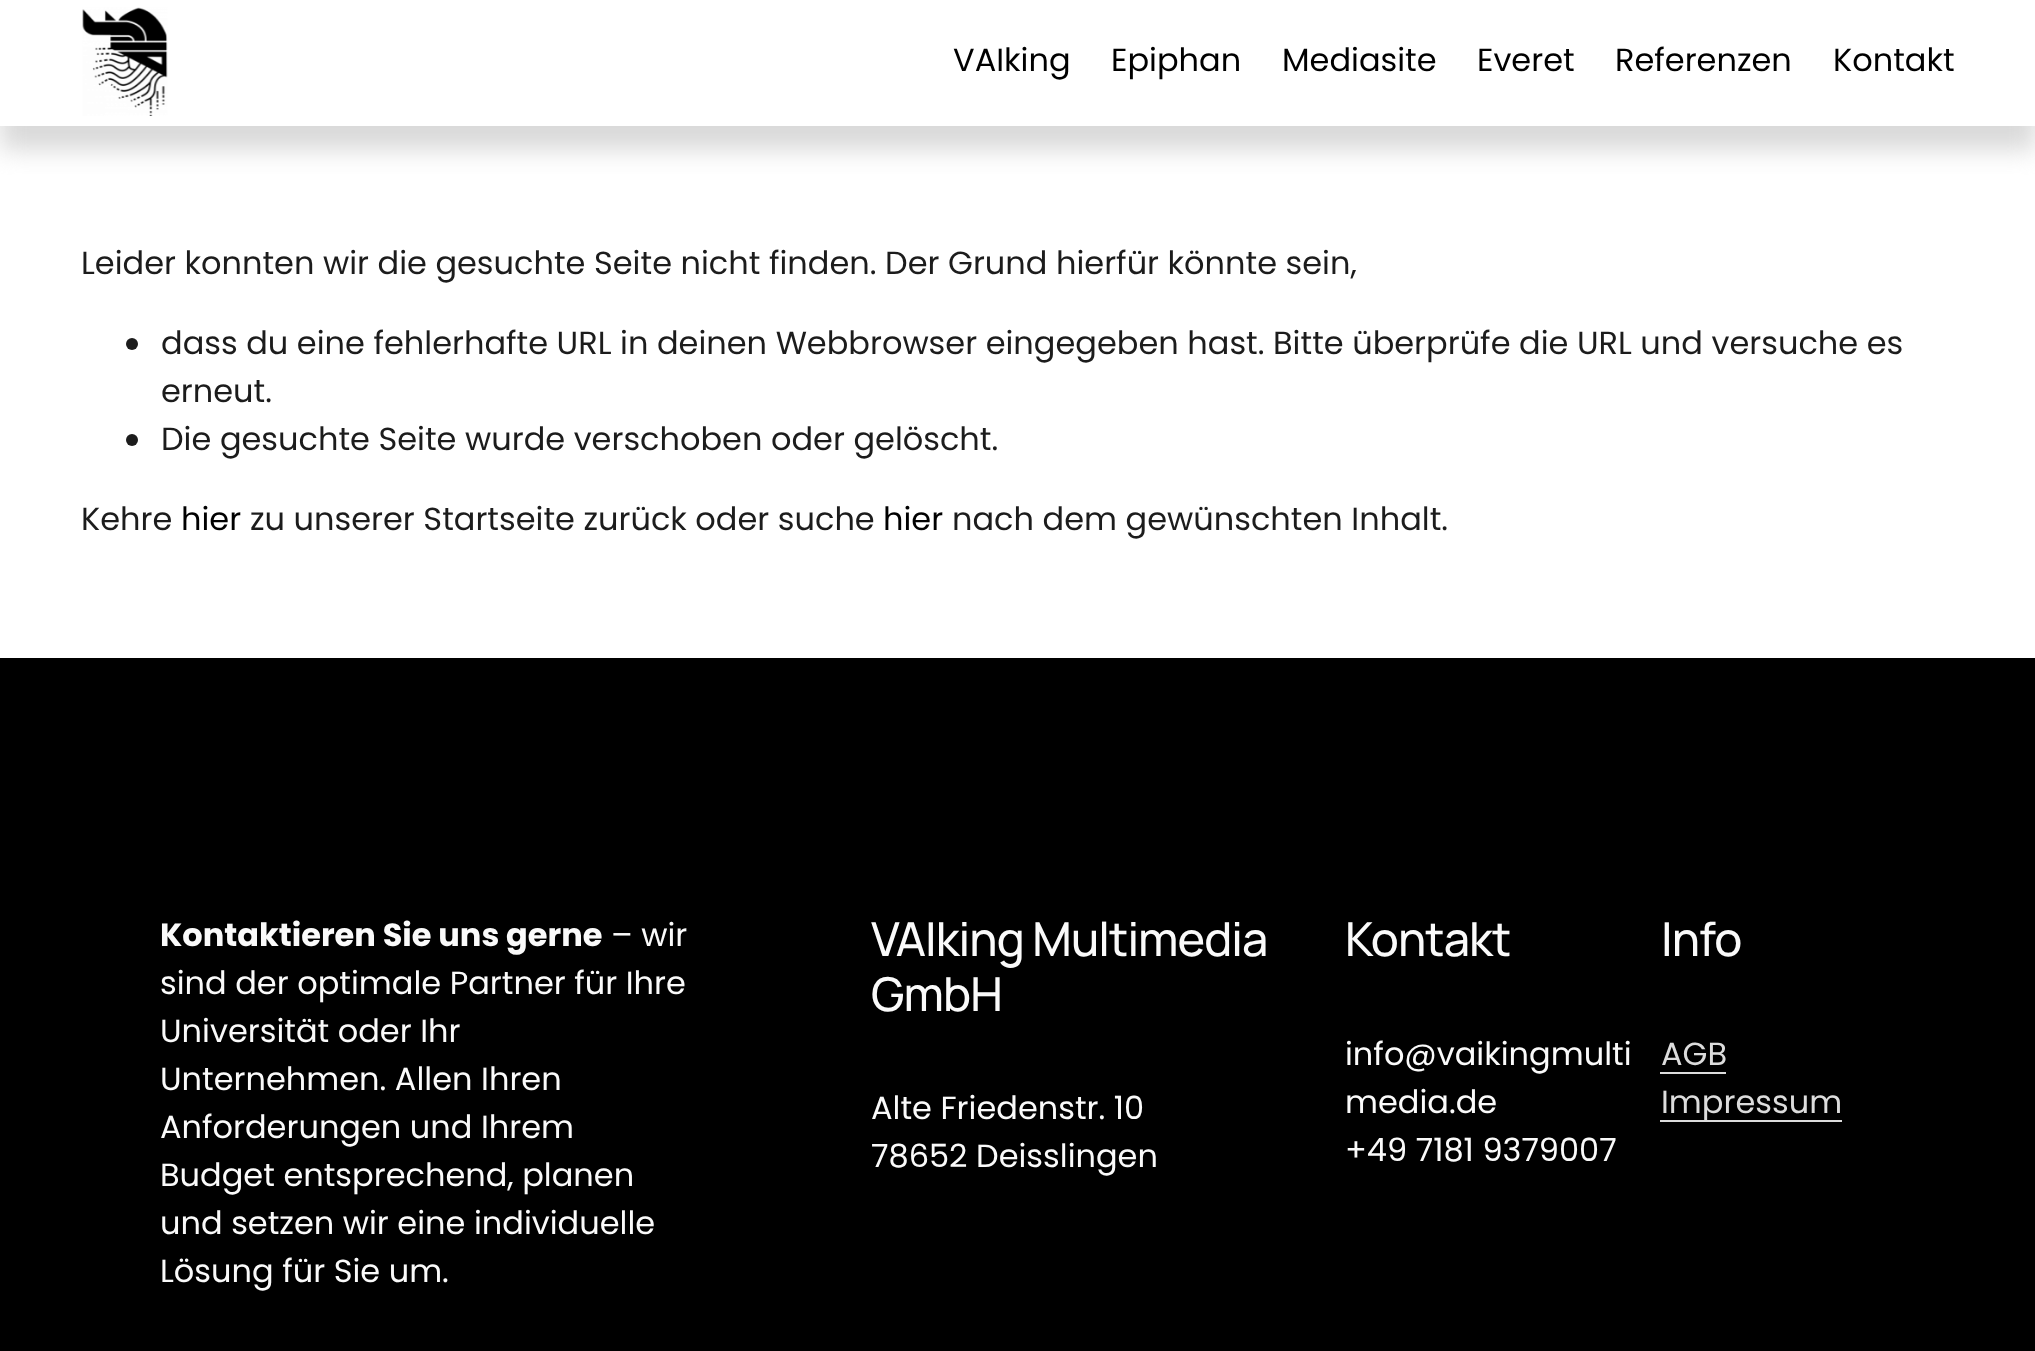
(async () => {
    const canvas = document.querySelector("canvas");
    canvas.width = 2035;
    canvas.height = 1351;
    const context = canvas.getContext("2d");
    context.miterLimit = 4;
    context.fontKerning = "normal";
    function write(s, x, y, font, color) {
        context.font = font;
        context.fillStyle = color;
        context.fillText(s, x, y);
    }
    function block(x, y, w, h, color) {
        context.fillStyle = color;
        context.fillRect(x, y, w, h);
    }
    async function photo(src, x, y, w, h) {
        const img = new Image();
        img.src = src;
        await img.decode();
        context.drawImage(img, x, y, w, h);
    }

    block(0, 0, 2035, 1351, "rgb(255, 255, 255)");
    context.save();
    context.beginPath();
    context.rect(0, 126, 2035, 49);
    context.clip();
    context.fillStyle = "rgb(217, 217, 217)";
    context.filter = "blur(12px)";
    context.beginPath();
    context.rect(0, 20, 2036, 130);
    context.fill();
    context.filter = "none";
    context.restore();
    await photo("media/1.png", 82, 7, 86, 109);
    write("VAIking", 953, 71, "32px Poppins", "rgb(0, 0, 0)");
    write("Epiphan", 1111, 71, "32px Poppins", "rgb(0, 0, 0)");
    write("Mediasite", 1282, 71, "32px Poppins", "rgb(0, 0, 0)");
    write("Everet", 1477, 71, "32px Poppins", "rgb(0, 0, 0)");
    write("Referenzen", 1615, 71, "32px Poppins", "rgb(0, 0, 0)");
    write("Kontakt", 1833, 71, "32px Poppins", "rgb(0, 0, 0)");
    write("Leider konnten wir die gesuchte Seite nicht finden. Der Grund hierfür könnte sein,", 81, 274, "32px Poppins", "rgb(28, 28, 28)");
    context.beginPath();
    context.arc(132, 344, 6, 0, Math.PI * 2);
    context.fill();
    write("dass du eine fehlerhafte URL in deinen Webbrowser eingegeben hast. Bitte überprüfe die URL und versuche es", 161, 354, "32px Poppins", "rgb(28, 28, 28)");
    write("erneut.", 161, 402, "32px Poppins", "rgb(28, 28, 28)");
    context.beginPath();
    context.arc(132, 440, 6, 0, Math.PI * 2);
    context.fill();
    write("Die gesuchte Seite wurde verschoben oder gelöscht.", 161, 450, "32px Poppins", "rgb(28, 28, 28)");
    write("Kehre", 81, 530, "32px Poppins", "rgb(28, 28, 28)");
    write("hier", 181, 530, "32px Poppins", "rgb(0, 0, 0)");
    write("zu unserer Startseite zurück oder suche", 250, 530, "32px Poppins", "rgb(28, 28, 28)");
    write("hier", 883, 530, "32px Poppins", "rgb(0, 0, 0)");
    write("nach dem gewünschten Inhalt.", 952, 530, "32px Poppins", "rgb(28, 28, 28)");
    block(0, 658, 2035, 693, "rgb(0, 0, 0)");
    write("Kontaktieren Sie uns gerne", 160, 946, "bold 32px Poppins", "rgb(250, 250, 250)");
    write("– wir", 611, 946, "32px Poppins", "rgb(250, 250, 250)");
    write("sind der optimale Partner für Ihre", 160, 994, "32px Poppins", "rgb(250, 250, 250)");
    write("Universität oder Ihr", 160, 1042, "32px Poppins", "rgb(250, 250, 250)");
    write("Unternehmen. Allen Ihren", 160, 1090, "32px Poppins", "rgb(250, 250, 250)");
    write("Anforderungen und Ihrem", 160, 1138, "32px Poppins", "rgb(250, 250, 250)");
    write("Budget entsprechend, planen", 160, 1186, "32px Poppins", "rgb(250, 250, 250)");
    write("und setzen wir eine individuelle", 160, 1234, "32px Poppins", "rgb(250, 250, 250)");
    write("Lösung für Sie um.", 160, 1282, "32px Poppins", "rgb(250, 250, 250)");
    context.letterSpacing = "-0.9px";
    write("VAIking Multimedia", 871, 956, "500 46.75px Manrope", "rgb(250, 250, 250)");
    write("GmbH", 871, 1011, "500 46.75px Manrope", "rgb(250, 250, 250)");
    context.letterSpacing = "0px";
    write("Alte Friedenstr. 10", 871, 1119, "32px Poppins", "rgb(250, 250, 250)");
    write("78652 Deisslingen", 871, 1167, "32px Poppins", "rgb(250, 250, 250)");
    context.letterSpacing = "-0.9px";
    write("Kontakt", 1345, 956, "500 46.75px Manrope", "rgb(250, 250, 250)");
    context.letterSpacing = "0px";
    write("info@vaikingmulti", 1345, 1065, "32px Poppins", "rgb(250, 250, 250)");
    write("media.de", 1345, 1113, "32px Poppins", "rgb(250, 250, 250)");
    write("+49 7181 9379007", 1345, 1161, "32px Poppins", "rgb(250, 250, 250)");
    context.letterSpacing = "-0.9px";
    write("Info", 1661, 956, "500 46.75px Manrope", "rgb(250, 250, 250)");
    context.letterSpacing = "0px";
    write("AGB", 1661, 1065, "32px Poppins", "rgb(220, 220, 220)");
    block(1660, 1072, 66, 2, "rgb(220, 220, 220)");
    block(1660, 1120, 182, 2, "rgb(220, 220, 220)");
    write("Impressum", 1661, 1113, "32px Poppins", "rgb(220, 220, 220)");
})();
